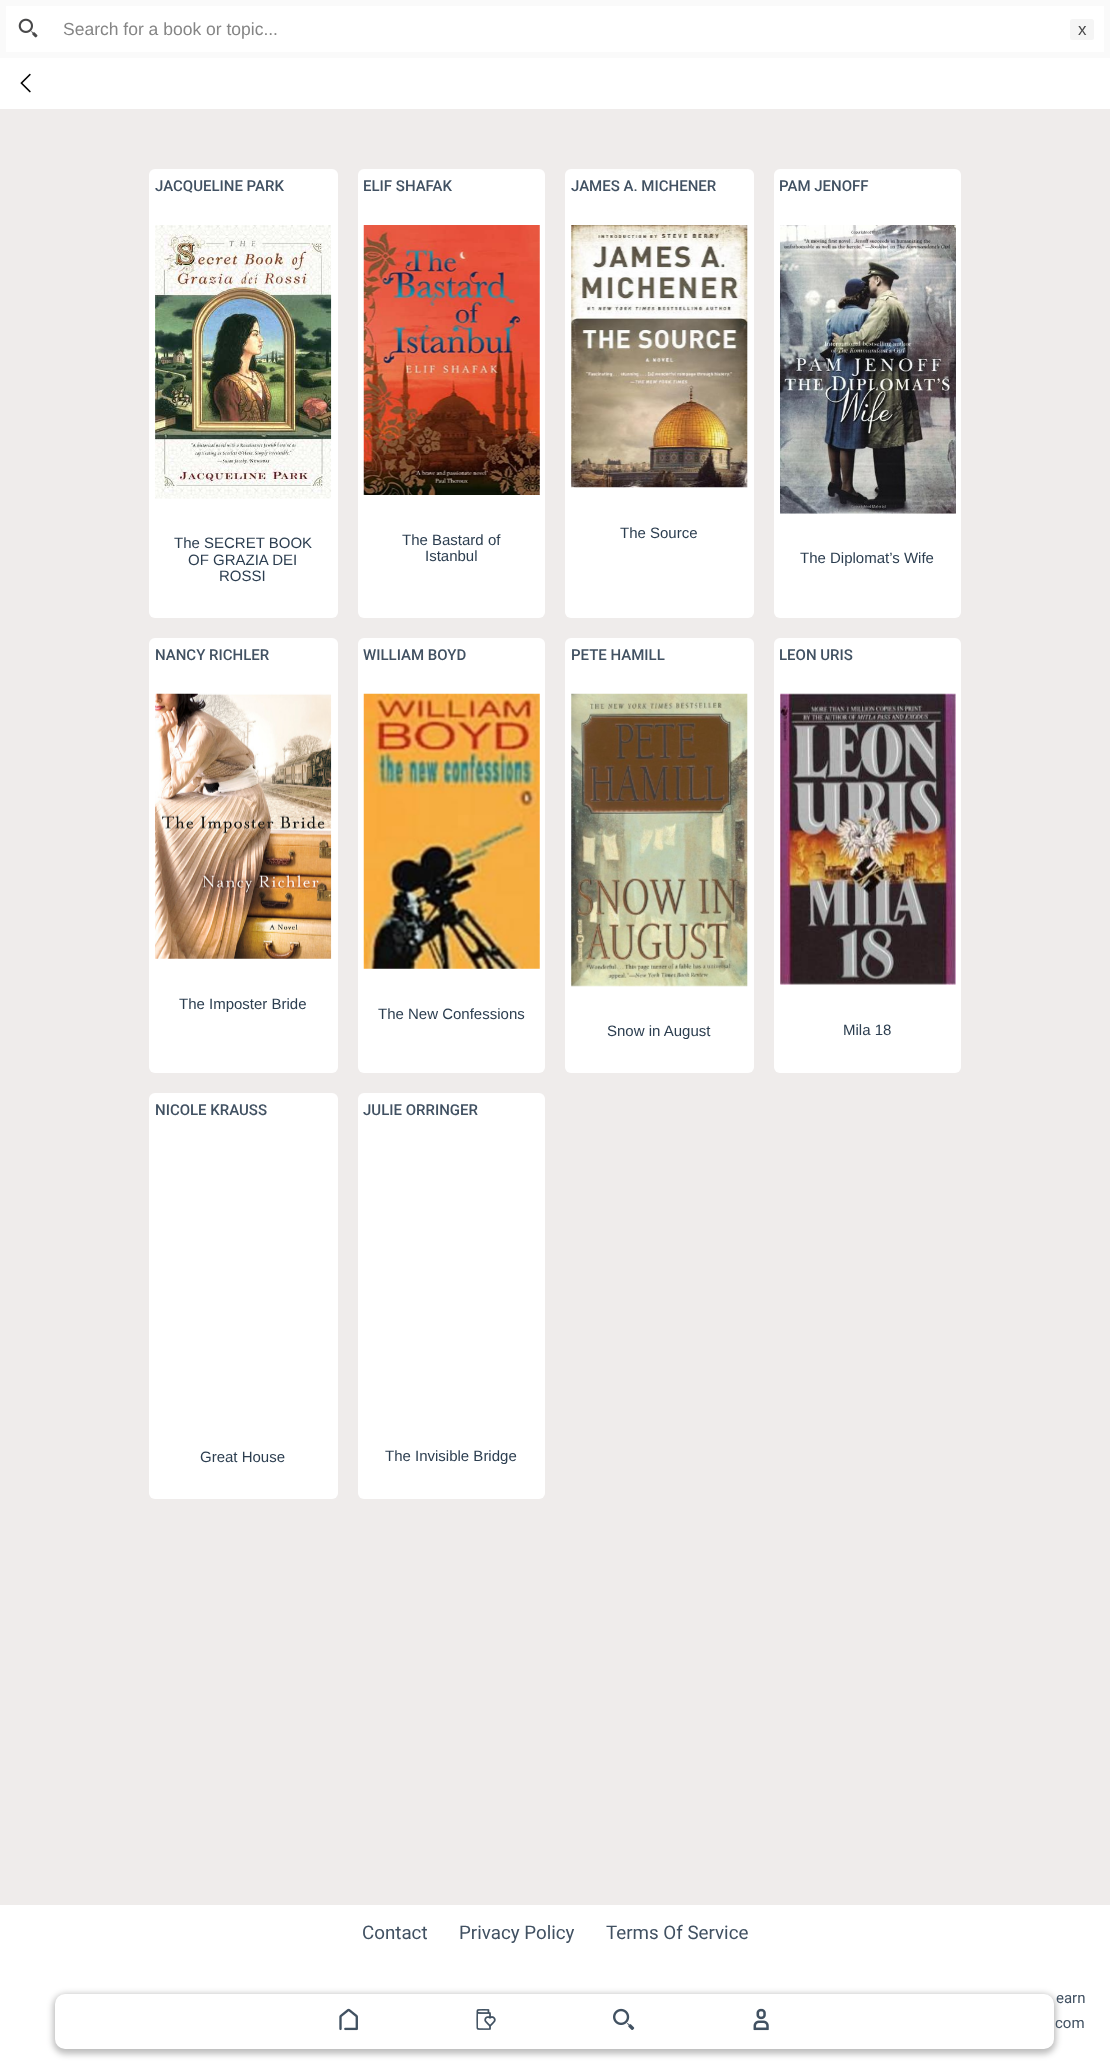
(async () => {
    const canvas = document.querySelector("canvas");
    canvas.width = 1110;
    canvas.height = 2061;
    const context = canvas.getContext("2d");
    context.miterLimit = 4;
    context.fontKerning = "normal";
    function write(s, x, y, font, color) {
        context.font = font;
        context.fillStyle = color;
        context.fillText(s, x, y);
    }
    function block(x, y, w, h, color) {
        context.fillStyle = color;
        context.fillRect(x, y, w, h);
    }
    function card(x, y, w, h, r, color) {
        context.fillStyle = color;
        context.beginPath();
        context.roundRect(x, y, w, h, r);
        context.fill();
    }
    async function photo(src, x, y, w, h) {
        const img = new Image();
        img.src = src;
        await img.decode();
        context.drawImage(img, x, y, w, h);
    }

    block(0, 0, 1110, 2061, "rgb(239, 236, 235)");
    block(0, 6, 1110, 103, "rgb(255, 255, 255)");
    context.strokeStyle = "rgb(250, 250, 250)";
    context.lineWidth = 6;
    context.strokeRect(3, 3, 1104, 52);
    await photo("media/1.png", 18, 18, 20, 20);
    write("Search for a book or topic...", 63, 35, "17.5px Liberation Sans", "rgb(133, 133, 133)");
    card(1070, 19, 24, 21, 2.5, "rgb(245, 245, 245)");
    write("x", 1078, 35, "17px Liberation Sans", "rgb(73, 73, 74)");
    await photo("media/2.png", 20, 73, 11, 20);
    card(149, 169, 189, 449, 6, "rgb(255, 255, 255)");
    write("JACQUELINE PARK", 155, 191, "500 15px Roboto", "rgb(65, 81, 98)");
    await photo("media/3.png", 155, 225, 177, 274);
    write("The SECRET BOOK", 174, 548, "15px Liberation Sans", "rgb(44, 62, 80)");
    write("OF GRAZIA DEI", 188, 565, "15px Liberation Sans", "rgb(44, 62, 80)");
    write("ROSSI", 219, 581, "15px Liberation Sans", "rgb(44, 62, 80)");
    card(358, 169, 187, 449, 6, "rgb(255, 255, 255)");
    write("ELIF SHAFAK", 363, 191, "500 15px Roboto", "rgb(65, 81, 98)");
    await photo("media/4.png", 363, 225, 177, 270);
    write("The Bastard of", 402, 545, "15px Liberation Sans", "rgb(44, 62, 80)");
    write("Istanbul", 425, 561, "15px Liberation Sans", "rgb(44, 62, 80)");
    card(565, 169, 189, 449, 6, "rgb(255, 255, 255)");
    write("JAMES A. MICHENER", 571, 191, "500 15px Roboto", "rgb(65, 81, 98)");
    await photo("media/5.png", 571, 225, 177, 263);
    write("The Source", 620, 538, "15px Liberation Sans", "rgb(44, 62, 80)");
    card(774, 169, 187, 449, 6, "rgb(255, 255, 255)");
    write("PAM JENOFF", 779, 191, "500 15px Roboto", "rgb(65, 81, 98)");
    await photo("media/6.png", 780, 225, 176, 289);
    write("The Diplomat’s Wife", 800, 563, "15px Liberation Sans", "rgb(44, 62, 80)");
    card(149, 638, 189, 435, 6, "rgb(255, 255, 255)");
    write("NANCY RICHLER", 155, 660, "500 15px Roboto", "rgb(65, 81, 98)");
    await photo("media/7.png", 155, 693, 177, 266);
    write("The Imposter Bride", 179, 1009, "15px Liberation Sans", "rgb(44, 62, 80)");
    card(358, 638, 187, 435, 6, "rgb(255, 255, 255)");
    write("WILLIAM BOYD", 363, 660, "500 15px Roboto", "rgb(65, 81, 98)");
    await photo("media/8.png", 363, 693, 177, 276);
    write("The New Confessions", 378, 1019, "15px Liberation Sans", "rgb(44, 62, 80)");
    card(565, 638, 189, 435, 6, "rgb(255, 255, 255)");
    write("PETE HAMILL", 571, 660, "500 15px Roboto", "rgb(65, 81, 98)");
    await photo("media/9.png", 571, 693, 177, 294);
    write("Snow in August", 607, 1036, "15px Liberation Sans", "rgb(44, 62, 80)");
    card(774, 638, 187, 435, 6, "rgb(255, 255, 255)");
    write("LEON URIS", 779, 660, "500 15px Roboto", "rgb(65, 81, 98)");
    await photo("media/10.png", 780, 693, 176, 292);
    write("Mila 18", 843, 1035, "15px Liberation Sans", "rgb(44, 62, 80)");
    card(149, 1093, 189, 406, 6, "rgb(255, 255, 255)");
    write("NICOLE KRAUSS", 155, 1115, "500 15px Roboto", "rgb(65, 81, 98)");
    write("Great House", 200, 1462, "15px Liberation Sans", "rgb(44, 62, 80)");
    card(358, 1093, 187, 406, 6, "rgb(255, 255, 255)");
    write("JULIE ORRINGER", 363, 1115, "500 15px Roboto", "rgb(65, 81, 98)");
    write("The Invisible Bridge", 385, 1461, "15px Liberation Sans", "rgb(44, 62, 80)");
    block(0, 1905, 1110, 156, "rgb(255, 255, 255)");
    write("Contact", 362, 1939, "18.75px Roboto", "rgb(65, 81, 98)");
    write("Privacy Policy", 459, 1939, "18.75px Roboto", "rgb(65, 81, 98)");
    write("Terms Of Service", 606, 1939, "18.75px Roboto", "rgb(65, 81, 98)");
    context.fillStyle = "rgba(0, 0, 0, 0.26)";
    context.filter = "blur(3px)";
    context.beginPath();
    context.roundRect(53, 1994, 1003, 60, 13);
    context.fill();
    context.filter = "none";
    card(55, 1994, 999, 55, 10, "rgb(255, 255, 255)");
    await photo("media/11.png", 339, 2008, 19, 23);
    await photo("media/12.png", 476, 2009, 20, 21);
    await photo("media/13.png", 613, 2008, 22, 22);
    await photo("media/14.png", 753, 2008, 16, 23);
    write("earn", 1056, 2003, "15px Roboto", "rgb(65, 81, 98)");
    write("com", 1055, 2028, "15px Roboto", "rgb(65, 81, 98)");
})();
